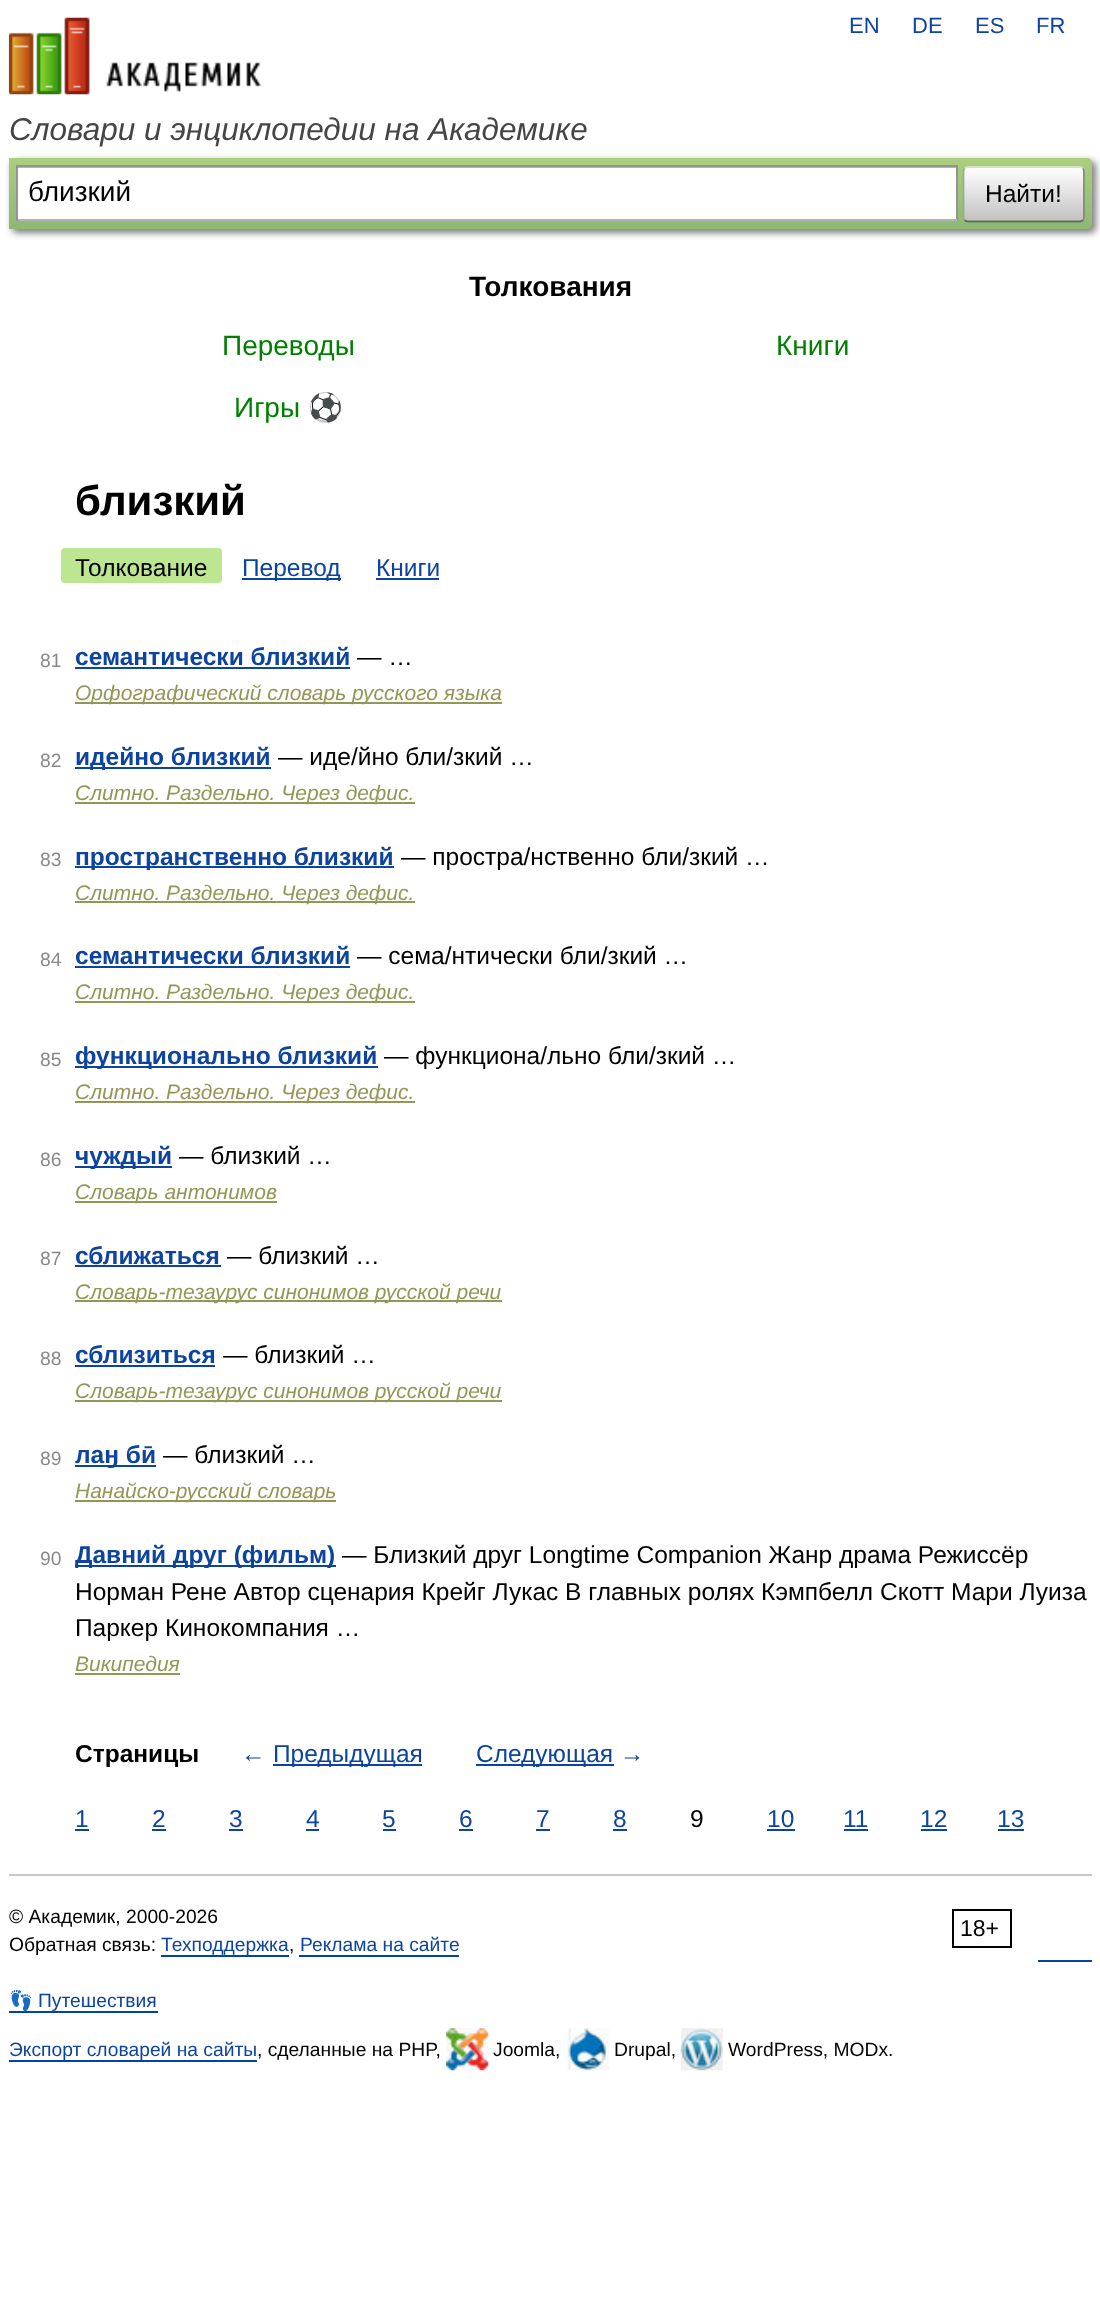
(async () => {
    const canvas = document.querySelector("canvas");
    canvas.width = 1100;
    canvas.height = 2303;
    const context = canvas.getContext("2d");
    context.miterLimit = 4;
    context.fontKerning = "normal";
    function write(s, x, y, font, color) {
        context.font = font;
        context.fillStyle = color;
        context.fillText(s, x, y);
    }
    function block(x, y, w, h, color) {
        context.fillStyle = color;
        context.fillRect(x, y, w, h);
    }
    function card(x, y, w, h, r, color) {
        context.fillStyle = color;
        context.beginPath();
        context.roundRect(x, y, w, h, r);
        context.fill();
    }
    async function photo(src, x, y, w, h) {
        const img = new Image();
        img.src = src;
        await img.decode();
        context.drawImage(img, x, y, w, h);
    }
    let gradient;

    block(0, 0, 1100, 2303, "rgb(255, 255, 255)");
    await photo("media/1.png", 8, 17, 253, 78);
    write("EN", 849, 33, "22px Liberation Sans", "rgb(13, 68, 160)");
    write("DE", 912, 33, "22px Liberation Sans", "rgb(13, 68, 160)");
    write("ES", 975, 33, "22px Liberation Sans", "rgb(13, 68, 160)");
    write("FR", 1036, 33, "22px Liberation Sans", "rgb(13, 68, 160)");
    write("Словари и энциклопедии на Академике", 9, 140, "italic 31.5px Liberation Sans", "rgb(69, 69, 69)");
    context.fillStyle = "rgba(0, 0, 0, 0.5)";
    context.filter = "blur(3.5px)";
    context.beginPath();
    context.roundRect(12, 161, 1084, 72, 5);
    context.fill();
    context.filter = "none";
    gradient = context.createLinearGradient(550, 157, 550, 229);
    gradient.addColorStop(0, "rgb(171, 207, 126)");
    gradient.addColorStop(1, "rgb(142, 184, 116)");
    context.fillStyle = gradient;
    context.beginPath();
    context.roundRect(9, 158, 1083, 71, [0, 5, 5, 0]);
    context.fill();
    block(18, 168, 938, 51, "rgb(255, 255, 255)");
    block(18, 167, 938, 1, "rgb(179, 179, 179)");
    block(16, 165, 941, 2, "rgb(148, 148, 148)");
    block(956, 165, 2, 56, "rgb(148, 148, 148)");
    block(16, 219, 941, 2, "rgb(180, 180, 180)");
    block(16, 165, 2, 56, "rgb(148, 148, 148)");
    write("близкий", 28, 201, "28px Liberation Sans", "rgb(0, 0, 0)");
    context.save();
    context.beginPath();
    context.roundRect(963, 166, 122, 56, 5);
    context.clip();
    gradient = context.createLinearGradient(1024, 116, 1024, 168);
    gradient.addColorStop(0, "rgb(255, 255, 255)");
    gradient.addColorStop(1, "rgb(193, 193, 193)");
    context.fillStyle = gradient;
    context.fillRect(963, 166, 122, 2);
    gradient = context.createLinearGradient(1024, 168, 1024, 221);
    gradient.addColorStop(0, "rgb(255, 255, 255)");
    gradient.addColorStop(1, "rgb(193, 193, 193)");
    context.fillStyle = gradient;
    context.fillRect(963, 168, 122, 53);
    context.restore();
    context.beginPath();
    context.moveTo(964.5, 168.5);
    context.bezierCurveTo(965.5, 167.5, 966.5, 167, 968, 167);
    context.lineTo(1080, 167);
    context.bezierCurveTo(1081, 167, 1082, 167.5, 1083, 168.5);
    context.strokeStyle = "rgb(209, 228, 188)";
    context.lineWidth = 1.8;
    context.stroke();
    context.beginPath();
    context.moveTo(1083, 168.5);
    context.bezierCurveTo(1083.5, 169, 1084, 170.5, 1084, 171.5);
    context.lineTo(1084, 217);
    context.bezierCurveTo(1084, 218, 1083.5, 219.5, 1083, 220);
    context.strokeStyle = "rgb(122, 142, 105)";
    context.stroke();
    context.beginPath();
    context.moveTo(1083, 220);
    context.bezierCurveTo(1082, 221, 1081, 221.5, 1080, 221.5);
    context.lineTo(968, 221.5);
    context.bezierCurveTo(966.5, 221.5, 965.5, 221, 964.5, 220);
    context.strokeStyle = "rgb(93, 114, 80)";
    context.stroke();
    context.beginPath();
    context.moveTo(964.5, 220);
    context.bezierCurveTo(964, 219.5, 963.5, 218, 963.5, 217);
    context.lineTo(963.5, 171.5);
    context.bezierCurveTo(963.5, 170.5, 964, 169, 964.5, 168.5);
    context.strokeStyle = "rgb(154, 174, 137)";
    context.stroke();
    write("Найти!", 985, 202, "24.5px Liberation Sans", "rgb(0, 0, 0)");
    write("Толкования", 469, 296, "bold 28px Liberation Sans", "rgb(0, 0, 0)");
    write("Переводы", 222, 355, "28px Liberation Sans", "rgb(0, 128, 0)");
    write("Книги", 776, 355, "28px Liberation Sans", "rgb(0, 128, 0)");
    write("Игры", 234, 417, "28px Liberation Sans", "rgb(0, 128, 0)");
    write("⚽", 308, 417, "28px Noto Color Emoji", "rgb(0, 128, 0)");
    write("близкий", 75, 515, "bold 42px Liberation Sans", "rgb(0, 0, 0)");
    card(61, 548, 161, 35, 4, "rgb(189, 230, 147)");
    write("Толкование", 75, 576, "24.5px Liberation Sans", "rgb(0, 0, 0)");
    block(242, 578, 99, 2, "rgb(13, 68, 160)");
    write("Перевод", 242, 576, "24.5px Liberation Sans", "rgb(13, 68, 160)");
    write("Книги", 376, 576, "24.5px Liberation Sans", "rgb(13, 68, 160)");
    block(376, 578, 63, 2, "rgb(13, 68, 160)");
    write("81", 40, 667, "19.25px Liberation Sans", "rgb(137, 137, 137)");
    write("семантически близкий", 75, 665, "bold 24.5px Liberation Sans", "rgb(13, 68, 160)");
    block(75, 667, 275, 2, "rgb(13, 68, 160)");
    write("— …", 357, 665, "24.5px Liberation Sans", "rgb(0, 0, 0)");
    block(75, 702, 427, 2, "rgb(147, 151, 86)");
    write("Орфографический словарь русского языка", 75, 700, "italic 21px Liberation Sans", "rgb(147, 151, 86)");
    write("82", 40, 767, "19.25px Liberation Sans", "rgb(137, 137, 137)");
    block(75, 767, 196, 2, "rgb(13, 68, 160)");
    write("идейно близкий", 75, 765, "bold 24.5px Liberation Sans", "rgb(13, 68, 160)");
    write("— иде/йно бли/зкий …", 278, 765, "24.5px Liberation Sans", "rgb(0, 0, 0)");
    block(75, 802, 340, 2, "rgb(147, 151, 86)");
    write("Слитно. Раздельно. Через дефис.", 75, 800, "italic 21px Liberation Sans", "rgb(147, 151, 86)");
    write("83", 40, 866, "19.25px Liberation Sans", "rgb(137, 137, 137)");
    block(75, 866, 319, 2, "rgb(13, 68, 160)");
    write("пространственно близкий", 75, 865, "bold 24.5px Liberation Sans", "rgb(13, 68, 160)");
    write("— простра/нственно бли/зкий …", 401, 865, "24.5px Liberation Sans", "rgb(0, 0, 0)");
    block(75, 901, 340, 2, "rgb(147, 151, 86)");
    write("Слитно. Раздельно. Через дефис.", 75, 900, "italic 21px Liberation Sans", "rgb(147, 151, 86)");
    write("84", 40, 966, "19.25px Liberation Sans", "rgb(137, 137, 137)");
    write("семантически близкий", 75, 964, "bold 24.5px Liberation Sans", "rgb(13, 68, 160)");
    block(75, 966, 275, 2, "rgb(13, 68, 160)");
    write("— сема/нтически бли/зкий …", 357, 964, "24.5px Liberation Sans", "rgb(0, 0, 0)");
    block(75, 1001, 340, 2, "rgb(147, 151, 86)");
    write("Слитно. Раздельно. Через дефис.", 75, 999, "italic 21px Liberation Sans", "rgb(147, 151, 86)");
    write("85", 40, 1066, "19.25px Liberation Sans", "rgb(137, 137, 137)");
    block(75, 1066, 303, 2, "rgb(13, 68, 160)");
    write("функционально близкий", 75, 1064, "bold 24.5px Liberation Sans", "rgb(13, 68, 160)");
    write("— функциона/льно бли/зкий …", 384, 1064, "24.5px Liberation Sans", "rgb(0, 0, 0)");
    block(75, 1101, 340, 2, "rgb(147, 151, 86)");
    write("Слитно. Раздельно. Через дефис.", 75, 1099, "italic 21px Liberation Sans", "rgb(147, 151, 86)");
    write("86", 40, 1166, "19.25px Liberation Sans", "rgb(137, 137, 137)");
    block(75, 1166, 97, 2, "rgb(13, 68, 160)");
    write("чуждый", 75, 1164, "bold 24.5px Liberation Sans", "rgb(13, 68, 160)");
    write("— близкий …", 179, 1164, "24.5px Liberation Sans", "rgb(0, 0, 0)");
    block(75, 1201, 202, 2, "rgb(147, 151, 86)");
    write("Словарь антонимов", 75, 1199, "italic 21px Liberation Sans", "rgb(147, 151, 86)");
    write("87", 40, 1265, "19.25px Liberation Sans", "rgb(137, 137, 137)");
    write("сближаться", 75, 1264, "bold 24.5px Liberation Sans", "rgb(13, 68, 160)");
    block(75, 1265, 146, 2, "rgb(13, 68, 160)");
    write("— близкий …", 227, 1264, "24.5px Liberation Sans", "rgb(0, 0, 0)");
    block(75, 1300, 427, 2, "rgb(147, 151, 86)");
    write("Словарь-тезаурус синонимов русской речи", 75, 1299, "italic 21px Liberation Sans", "rgb(147, 151, 86)");
    write("88", 40, 1365, "19.25px Liberation Sans", "rgb(137, 137, 137)");
    write("сблизиться", 75, 1363, "bold 24.5px Liberation Sans", "rgb(13, 68, 160)");
    block(75, 1365, 140, 2, "rgb(13, 68, 160)");
    write("— близкий …", 223, 1363, "24.5px Liberation Sans", "rgb(0, 0, 0)");
    block(75, 1400, 427, 2, "rgb(147, 151, 86)");
    write("Словарь-тезаурус синонимов русской речи", 75, 1398, "italic 21px Liberation Sans", "rgb(147, 151, 86)");
    write("89", 40, 1465, "19.25px Liberation Sans", "rgb(137, 137, 137)");
    block(75, 1465, 81, 2, "rgb(13, 68, 160)");
    write("лаӈ бӣ", 75, 1463, "bold 24.5px Liberation Sans", "rgb(13, 68, 160)");
    write("— близкий …", 163, 1463, "24.5px Liberation Sans", "rgb(0, 0, 0)");
    block(75, 1500, 261, 2, "rgb(147, 151, 86)");
    write("Нанайско-русский словарь", 75, 1498, "italic 21px Liberation Sans", "rgb(147, 151, 86)");
    write("90", 40, 1565, "19.25px Liberation Sans", "rgb(137, 137, 137)");
    block(75, 1565, 261, 2, "rgb(13, 68, 160)");
    write("Давний друг (фильм)", 75, 1563, "bold 24.5px Liberation Sans", "rgb(13, 68, 160)");
    write("— Близкий друг Longtime Companion Жанр драма Режиссёр", 342, 1563, "24.5px Liberation Sans", "rgb(0, 0, 0)");
    write("Норман Рене Автор сценария Крейг Лукас В главных ролях Кэмпбелл Скотт Мари Луиза", 75, 1600, "24.5px Liberation Sans", "rgb(0, 0, 0)");
    write("Паркер Кинокомпания …", 75, 1636, "24.5px Liberation Sans", "rgb(0, 0, 0)");
    write("Википедия", 75, 1671, "italic 21px Liberation Sans", "rgb(147, 151, 86)");
    block(75, 1673, 105, 2, "rgb(147, 151, 86)");
    write("Страницы", 75, 1762, "bold 24.5px Liberation Sans", "rgb(0, 0, 0)");
    write("←", 241, 1762, "24.5px Liberation Sans", "rgb(13, 68, 160)");
    block(273, 1764, 149, 2, "rgb(13, 68, 160)");
    write("Предыдущая", 273, 1762, "24.5px Liberation Sans", "rgb(13, 68, 160)");
    block(476, 1764, 138, 2, "rgb(13, 68, 160)");
    write("Следующая →", 476, 1762, "24.5px Liberation Sans", "rgb(13, 68, 160)");
    write("1", 75, 1827, "24.5px Liberation Sans", "rgb(13, 68, 160)");
    block(75, 1829, 14, 2, "rgb(13, 68, 160)");
    write("2", 152, 1827, "24.5px Liberation Sans", "rgb(13, 68, 160)");
    block(152, 1829, 14, 2, "rgb(13, 68, 160)");
    write("3", 229, 1827, "24.5px Liberation Sans", "rgb(13, 68, 160)");
    block(229, 1829, 14, 2, "rgb(13, 68, 160)");
    write("4", 306, 1827, "24.5px Liberation Sans", "rgb(13, 68, 160)");
    block(306, 1829, 13, 2, "rgb(13, 68, 160)");
    write("5", 382, 1827, "24.5px Liberation Sans", "rgb(13, 68, 160)");
    block(383, 1829, 13, 2, "rgb(13, 68, 160)");
    write("6", 459, 1827, "24.5px Liberation Sans", "rgb(13, 68, 160)");
    block(459, 1829, 14, 2, "rgb(13, 68, 160)");
    write("7", 536, 1827, "24.5px Liberation Sans", "rgb(13, 68, 160)");
    block(536, 1829, 14, 2, "rgb(13, 68, 160)");
    write("8", 613, 1827, "24.5px Liberation Sans", "rgb(13, 68, 160)");
    block(613, 1829, 14, 2, "rgb(13, 68, 160)");
    write("9", 690, 1827, "24.5px Liberation Sans", "rgb(0, 0, 0)");
    write("10", 767, 1827, "24.5px Liberation Sans", "rgb(13, 68, 160)");
    block(767, 1829, 28, 2, "rgb(13, 68, 160)");
    write("11", 843, 1827, "24.5px Liberation Sans", "rgb(13, 68, 160)");
    block(844, 1829, 24, 2, "rgb(13, 68, 160)");
    write("12", 920, 1827, "24.5px Liberation Sans", "rgb(13, 68, 160)");
    block(921, 1829, 26, 2, "rgb(13, 68, 160)");
    write("13", 997, 1827, "24.5px Liberation Sans", "rgb(13, 68, 160)");
    block(998, 1829, 26, 2, "rgb(13, 68, 160)");
    block(9, 1874, 1083, 2, "rgb(199, 199, 199)");
    write("© Академик, 2000-2026", 9, 1923, "19.25px Liberation Sans", "rgb(0, 0, 0)");
    context.strokeStyle = "rgb(0, 0, 0)";
    context.lineWidth = 2;
    context.strokeRect(953, 1910, 58, 37);
    write("18+", 960, 1936, "23px Liberation Sans", "rgb(0, 0, 0)");
    write("Обратная связь:", 9, 1951, "19.25px Liberation Sans", "rgb(0, 0, 0)");
    write("Техподдержка", 161, 1951, "19.25px Liberation Sans", "rgb(13, 68, 160)");
    block(161, 1955, 128, 2, "rgb(0, 68, 170)");
    write(",", 289, 1951, "19.25px Liberation Sans", "rgb(0, 0, 0)");
    write("Реклама на сайте", 300, 1951, "19.25px Liberation Sans", "rgb(13, 68, 160)");
    block(299, 1955, 160, 2, "rgb(0, 68, 170)");
    block(1038, 1960, 54, 2, "rgb(0, 68, 170)");
    write("👣", 9, 2007, "19.25px Noto Color Emoji", "rgb(13, 68, 160)");
    write("Путешествия", 38, 2007, "19.25px Liberation Sans", "rgb(13, 68, 160)");
    block(9, 2011, 149, 2, "rgb(0, 68, 170)");
    write("Экспорт словарей на сайты", 9, 2056, "19.25px Liberation Sans", "rgb(13, 68, 160)");
    block(9, 2060, 248, 2, "rgb(0, 68, 170)");
    write(", сделанные на PHP,", 257, 2056, "19.25px Liberation Sans", "rgb(0, 0, 0)");
    await photo("media/2.png", 446, 2028, 43, 43);
    write("Joomla,", 493, 2056, "19.25px Liberation Sans", "rgb(0, 0, 0)");
    await photo("media/3.png", 567, 2028, 42, 43);
    write("Drupal,", 614, 2056, "19.25px Liberation Sans", "rgb(0, 0, 0)");
    await photo("media/4.png", 680, 2028, 43, 43);
    write("WordPress, MODx.", 728, 2056, "19.25px Liberation Sans", "rgb(0, 0, 0)");
})();
